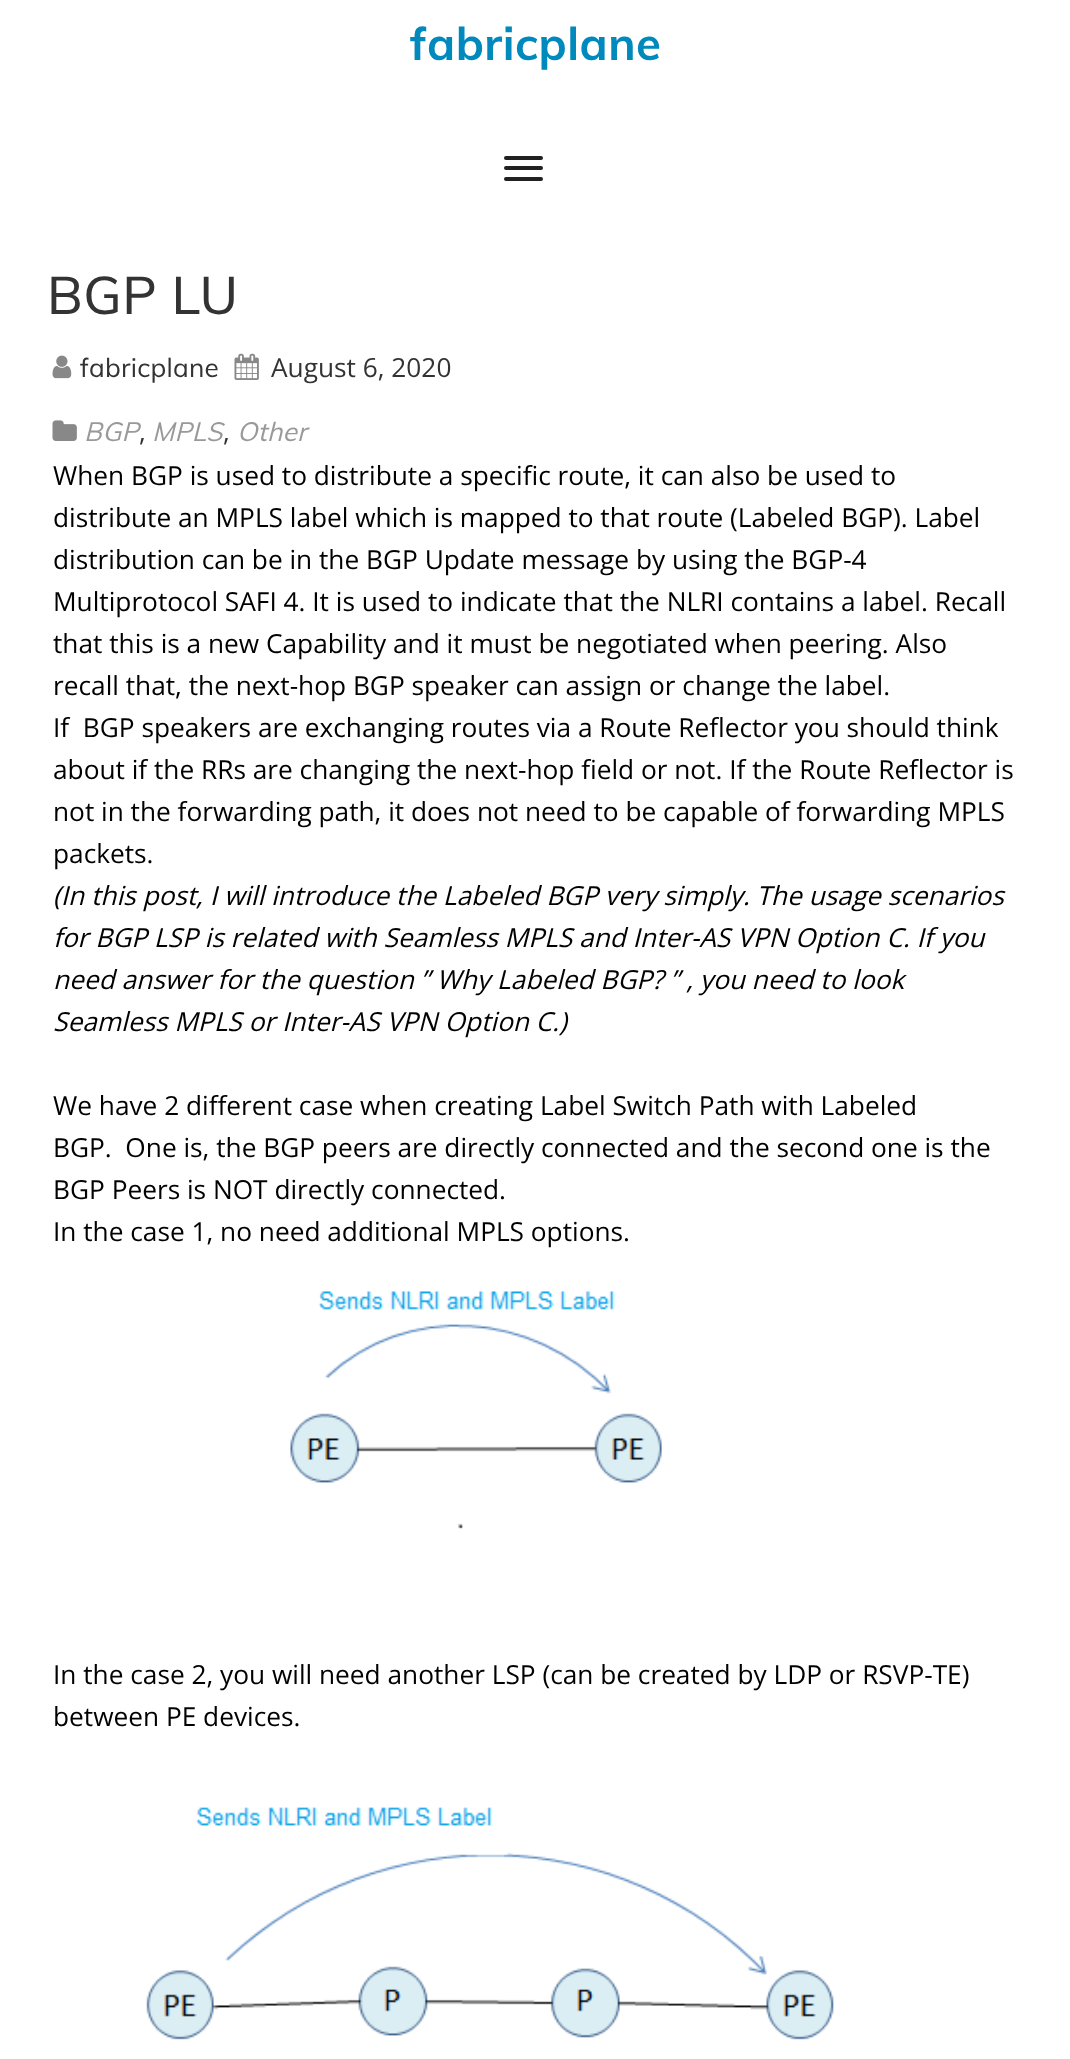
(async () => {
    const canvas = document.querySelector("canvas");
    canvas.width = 1070;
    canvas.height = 2059;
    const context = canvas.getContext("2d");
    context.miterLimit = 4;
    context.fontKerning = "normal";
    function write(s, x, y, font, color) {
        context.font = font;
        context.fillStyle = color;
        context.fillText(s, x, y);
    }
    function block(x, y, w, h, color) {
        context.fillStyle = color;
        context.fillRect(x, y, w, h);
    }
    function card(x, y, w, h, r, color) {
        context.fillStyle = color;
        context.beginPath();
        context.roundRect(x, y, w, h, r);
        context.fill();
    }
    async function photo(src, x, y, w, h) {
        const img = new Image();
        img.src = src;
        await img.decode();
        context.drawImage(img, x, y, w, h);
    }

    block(0, 0, 1070, 2059, "rgb(255, 255, 255)");
    context.letterSpacing = "0.5px";
    write("fabricplane", 410, 60, "bold 45.5px Muli", "rgb(0, 137, 189)");
    card(504, 156, 39, 4, 2, "rgb(33, 33, 33)");
    card(504, 166, 39, 4, 2, "rgb(33, 33, 33)");
    card(504, 177, 39, 4, 2, "rgb(33, 33, 33)");
    write("BGP LU", 47, 314, "500 52.5px Muli", "rgb(51, 51, 51)");
    await photo("media/1.png", 52, 355, 20, 24);
    context.letterSpacing = "0.25px";
    write("fabricplane", 80, 377, "26.25px Muli", "rgb(51, 51, 51)");
    await photo("media/2.png", 234, 353, 25, 27);
    context.letterSpacing = "0px";
    write("August 6, 2020", 271, 377, "26.25px Open Sans", "rgb(51, 51, 51)");
    await photo("media/3.png", 52, 420, 25, 21);
    context.letterSpacing = "0.25px";
    write("BGP", 84, 441, "italic 26.25px Muli", "rgb(153, 153, 153)");
    context.letterSpacing = "0px";
    write(",", 139, 441, "26.25px Open Sans", "rgb(51, 51, 51)");
    context.letterSpacing = "0.25px";
    write("MPLS", 152, 441, "italic 26.25px Muli", "rgb(153, 153, 153)");
    write("Other", 237, 441, "italic 26.25px Muli", "rgb(153, 153, 153)");
    context.letterSpacing = "0px";
    write(",", 223, 441, "26.25px Open Sans", "rgb(51, 51, 51)");
    write("When BGP is used to distribute a specific route, it can also be used to", 53, 485, "26.25px Open Sans", "rgb(0, 0, 0)");
    write("distribute an MPLS label which is mapped to that route (Labeled BGP). Label", 53, 527, "26.25px Open Sans", "rgb(0, 0, 0)");
    write("distribution can be in the BGP Update message by using the BGP-4", 53, 569, "26.25px Open Sans", "rgb(0, 0, 0)");
    write("Multiprotocol SAFI 4. It is used to indicate that the NLRI contains a label. Recall", 53, 611, "26.25px Open Sans", "rgb(0, 0, 0)");
    write("that this is a new Capability and it must be negotiated when peering. Also", 53, 653, "26.25px Open Sans", "rgb(0, 0, 0)");
    write("recall that, the next-hop BGP speaker can assign or change the label.", 53, 695, "26.25px Open Sans", "rgb(0, 0, 0)");
    write("If  BGP speakers are exchanging routes via a Route Reflector you should think", 53, 737, "26.25px Open Sans", "rgb(0, 0, 0)");
    write("about if the RRs are changing the next-hop field or not. If the Route Reflector is", 53, 779, "26.25px Open Sans", "rgb(0, 0, 0)");
    write("not in the forwarding path, it does not need to be capable of forwarding MPLS", 53, 821, "26.25px Open Sans", "rgb(0, 0, 0)");
    write("packets.", 53, 863, "26.25px Open Sans", "rgb(0, 0, 0)");
    write("(In this post, I will introduce the Labeled BGP very simply. The usage scenarios", 53, 905, "italic 26.25px Open Sans", "rgb(0, 0, 0)");
    write("for BGP LSP is related with Seamless MPLS and Inter-AS VPN Option C. If you", 53, 947, "italic 26.25px Open Sans", "rgb(0, 0, 0)");
    write("need answer for the question ” Why Labeled BGP? ” , you need to look", 53, 989, "italic 26.25px Open Sans", "rgb(0, 0, 0)");
    write("Seamless MPLS or Inter-AS VPN Option C.)", 53, 1031, "italic 26.25px Open Sans", "rgb(0, 0, 0)");
    write("We have 2 different case when creating Label Switch Path with Labeled", 53, 1115, "26.25px Open Sans", "rgb(0, 0, 0)");
    write("BGP.  One is, the BGP peers are directly connected and the second one is the", 53, 1157, "26.25px Open Sans", "rgb(0, 0, 0)");
    write("BGP Peers is NOT directly connected.", 53, 1199, "26.25px Open Sans", "rgb(0, 0, 0)");
    write("In the case 1, no need additional MPLS options.", 53, 1241, "26.25px Open Sans", "rgb(0, 0, 0)");
    await photo("media/4.png", 290, 1291, 372, 238);
    write("In the case 2, you will need another LSP (can be created by LDP or RSVP-TE)", 53, 1684, "26.25px Open Sans", "rgb(0, 0, 0)");
    write("between PE devices.", 53, 1726, "26.25px Open Sans", "rgb(0, 0, 0)");
    await photo("media/5.png", 146, 1807, 688, 233);
})();
